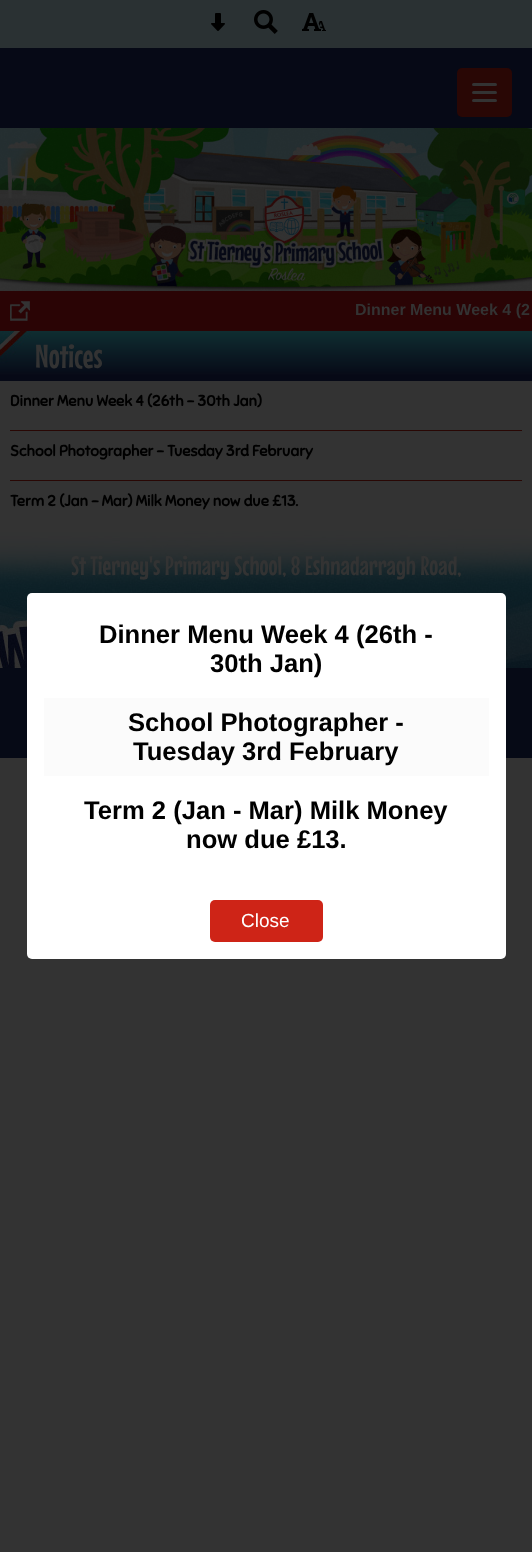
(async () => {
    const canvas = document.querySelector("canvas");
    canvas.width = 532;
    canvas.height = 1552;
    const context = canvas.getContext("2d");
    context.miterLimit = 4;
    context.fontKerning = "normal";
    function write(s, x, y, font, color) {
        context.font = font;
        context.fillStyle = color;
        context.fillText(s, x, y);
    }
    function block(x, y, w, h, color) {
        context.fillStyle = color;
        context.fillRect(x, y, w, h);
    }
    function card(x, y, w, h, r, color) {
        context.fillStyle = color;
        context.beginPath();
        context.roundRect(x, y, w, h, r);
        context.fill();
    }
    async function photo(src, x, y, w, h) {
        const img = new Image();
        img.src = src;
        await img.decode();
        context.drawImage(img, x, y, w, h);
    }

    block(0, 0, 532, 1552, "rgb(51, 51, 51)");
    block(0, 0, 532, 48, "rgb(42, 49, 51)");
    await photo("media/1.png", 211, 13, 14, 18);
    await photo("media/2.png", 254, 10, 24, 24);
    await photo("media/3.png", 302, 13, 24, 18);
    block(0, 48, 532, 80, "rgb(6, 9, 22)");
    card(457, 68, 55, 49, 5, "rgb(41, 7, 5)");
    card(472, 83, 25, 3, 1.5, "rgb(51, 51, 51)");
    card(472, 91, 25, 3, 1.5, "rgb(51, 51, 51)");
    card(472, 99, 25, 3, 1.5, "rgb(51, 51, 51)");
    await photo("media/4.png", 0, 128, 532, 163);
    block(0, 291, 532, 40, "rgb(42, 4, 5)");
    await photo("media/5.png", 10, 301, 20, 20);
    write("Dinner Menu Week 4 (2", 355, 315, "bold 16px Liberation Sans", "rgb(51, 51, 51)");
    block(0, 375, 532, 6, "rgb(6, 9, 22)");
    await photo("media/6.png", 0, 331, 532, 44);
    write("Notices", 35, 368, "33px Mouse Memoirs", "rgb(51, 51, 51)");
    write("Dinner Menu Week 4 (26th - 30th Jan)", 10, 406, "bold 15.25px Sniglet", "rgb(0, 0, 0)");
    block(10, 430, 512, 1, "rgb(41, 7, 4)");
    write("School Photographer - Tuesday 3rd February", 10, 456, "bold 15.25px Sniglet", "rgb(0, 0, 0)");
    block(10, 480, 512, 1, "rgb(41, 7, 4)");
    write("Term 2 (Jan - Mar) Milk Money now due £13.", 10, 506, "bold 15.25px Sniglet", "rgb(0, 0, 0)");
    await photo("media/7.png", 0, 520, 532, 148);
    write("St Tierney's Primary School, 8 Eshnadarragh Road,", 71, 575, "26.9px Mouse Memoirs", "rgb(51, 51, 51)");
    block(0, 668, 532, 90, "rgb(6, 10, 22)");
    card(27, 593, 479, 366, 5, "rgb(255, 255, 255)");
    write("Dinner Menu Week 4 (26th -", 99, 643, "bold 25.6px Liberation Sans", "rgb(0, 0, 0)");
    write("30th Jan)", 210, 672, "bold 25.6px Liberation Sans", "rgb(0, 0, 0)");
    block(44, 698, 445, 78, "rgb(251, 251, 251)");
    write("School Photographer -", 128, 731, "bold 25.6px Liberation Sans", "rgb(0, 0, 0)");
    write("Tuesday 3rd February", 133, 760, "bold 25.6px Liberation Sans", "rgb(0, 0, 0)");
    write("Term 2 (Jan - Mar) Milk Money", 84, 819, "bold 25.6px Liberation Sans", "rgb(0, 0, 0)");
    write("now due £13.", 186, 848, "bold 25.6px Liberation Sans", "rgb(0, 0, 0)");
    card(210, 900, 113, 42, 5, "rgb(206, 36, 23)");
    write("Close", 241, 927, "19px Liberation Sans", "rgb(255, 255, 255)");
})();
